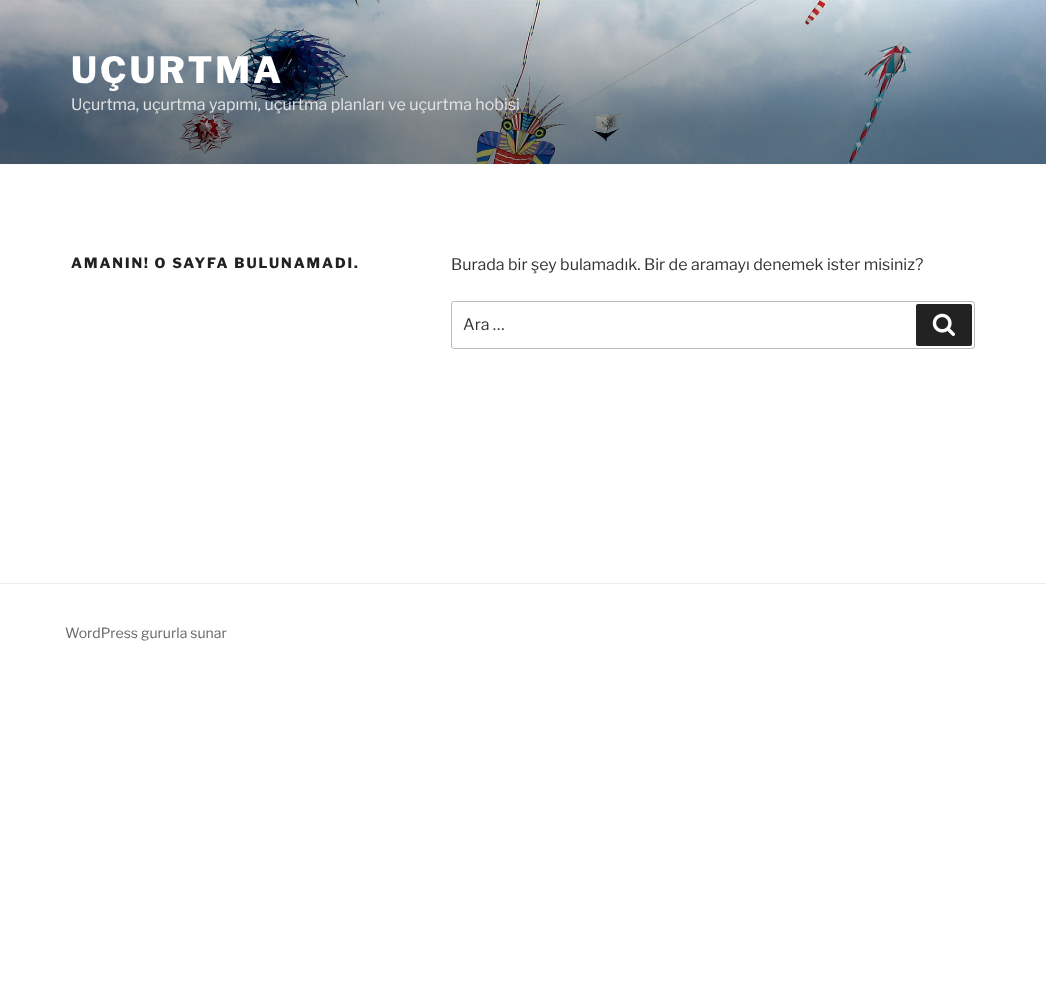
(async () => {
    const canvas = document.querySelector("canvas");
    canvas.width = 1046;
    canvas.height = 1007;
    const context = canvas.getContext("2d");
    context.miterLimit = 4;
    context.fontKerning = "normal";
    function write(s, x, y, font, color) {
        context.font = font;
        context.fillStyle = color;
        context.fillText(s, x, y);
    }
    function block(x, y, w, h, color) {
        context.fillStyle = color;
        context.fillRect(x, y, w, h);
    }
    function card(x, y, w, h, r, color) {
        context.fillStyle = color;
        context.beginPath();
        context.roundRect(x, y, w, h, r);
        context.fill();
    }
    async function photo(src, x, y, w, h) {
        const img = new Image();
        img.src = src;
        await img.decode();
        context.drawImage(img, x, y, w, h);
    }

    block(0, 0, 1046, 1007, "rgb(255, 255, 255)");
    block(0, 164, 1046, 1, "rgb(250, 250, 250)");
    await photo("media/1.png", 0, 0, 1046, 164);
    context.letterSpacing = "3px";
    write("UÇURTMA", 71, 83, "100 36px Libre Franklin", "rgb(255, 255, 255)");
    context.letterSpacing = "0px";
    write("Uçurtma, uçurtma yapımı, uçurtma planları ve uçurtma hobisi", 71, 110, "100 16px 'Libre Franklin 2'", "rgb(226, 228, 230)");
    context.letterSpacing = "1.95px";
    write("AMANIN! O SAYFA BULUNAMADI.", 71, 268, "100 14px Libre Franklin", "rgb(34, 34, 34)");
    context.letterSpacing = "0px";
    write("Burada bir şey bulamadık. Bir de aramayı denemek ister misiniz?", 451, 270, "100 16px 'Libre Franklin 2'", "rgb(51, 51, 51)");
    context.beginPath();
    context.roundRect(451.5, 301.5, 523, 47, 2.5);
    context.strokeStyle = "rgb(187, 187, 187)";
    context.stroke();
    write("Ara …", 463, 330, "100 16px 'Libre Franklin 2'", "rgb(51, 51, 51)");
    card(916, 304, 56, 42, 2, "rgb(34, 34, 34)");
    await photo("media/2.png", 932, 313, 23, 23);
    block(0, 583, 1046, 1, "rgb(238, 238, 238)");
    write("WordPress gururla sunar", 65, 638, "100 14px 'Libre Franklin 2'", "rgb(102, 102, 102)");
})();
